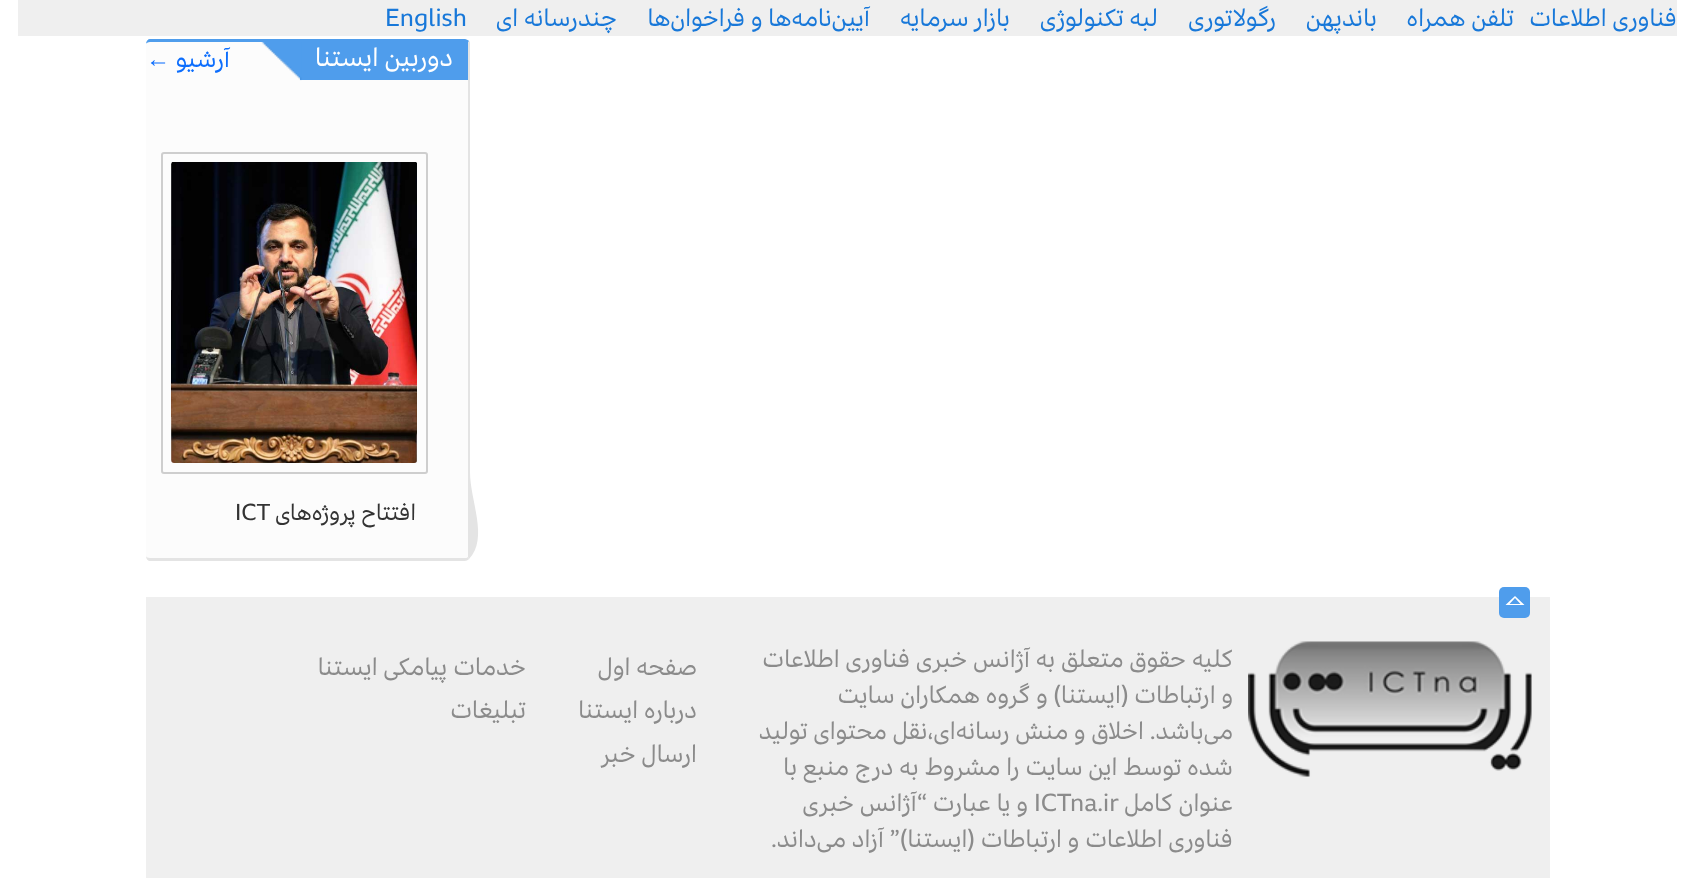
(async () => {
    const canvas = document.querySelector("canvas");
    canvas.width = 1695;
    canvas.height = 878;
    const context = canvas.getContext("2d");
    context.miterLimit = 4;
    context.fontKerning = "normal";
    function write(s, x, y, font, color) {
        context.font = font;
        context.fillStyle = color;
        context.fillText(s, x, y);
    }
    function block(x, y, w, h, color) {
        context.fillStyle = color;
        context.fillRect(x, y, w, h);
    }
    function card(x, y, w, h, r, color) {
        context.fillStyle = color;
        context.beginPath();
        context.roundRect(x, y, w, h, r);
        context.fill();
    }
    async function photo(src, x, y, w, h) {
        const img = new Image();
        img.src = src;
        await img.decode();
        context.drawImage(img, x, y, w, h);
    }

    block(0, 0, 1695, 878, "rgb(255, 255, 255)");
    block(18, 0, 1659, 36, "rgb(239, 239, 239)");
    context.direction = "rtl";
    write("فناوری اطلاعات", 1677, 26, "24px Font", "rgb(24, 120, 217)");
    write("تلفن همراه", 1514, 26, "24px Font", "rgb(24, 120, 217)");
    write("باندپهن", 1377, 26, "24px Font", "rgb(24, 120, 217)");
    write("رگولاتوری", 1276, 26, "24px Font", "rgb(24, 120, 217)");
    write("لبه تکنولوژی", 1158, 26, "24px Font", "rgb(24, 120, 217)");
    write("بازار سرمایه", 1010, 26, "24px Font", "rgb(24, 120, 217)");
    write("آیین‌نامه‌ها و فراخوان‌ها", 870, 26, "24px Font", "rgb(24, 120, 217)");
    write("چندرسانه ای", 617, 26, "24px Font", "rgb(24, 120, 217)");
    context.direction = "ltr";
    write("English", 385, 26, "24px Font", "rgb(24, 120, 217)");
    card(146, 39, 324, 522, 5, "rgb(252, 252, 252)");
    context.fillStyle = "rgb(79, 157, 236)";
    context.beginPath();
    context.moveTo(150, 39);
    context.lineTo(465, 39);
    context.bezierCurveTo(466, 39, 468, 40, 469, 41);
    context.lineTo(468, 43);
    context.bezierCurveTo(467, 42, 466, 42, 465, 42);
    context.lineTo(150, 42);
    context.bezierCurveTo(148, 42, 146, 43, 146, 44);
    context.bezierCurveTo(146, 41, 148, 39, 150, 39);
    context.closePath();
    context.fill();
    context.fillStyle = "rgb(228, 228, 228)";
    context.beginPath();
    context.moveTo(468, 557);
    context.lineTo(468, 556);
    context.lineTo(468, 44);
    context.lineTo(468, 43);
    context.lineTo(469, 41);
    context.lineTo(470, 42);
    context.lineTo(470, 472);
    context.bezierCurveTo(470, 501, 489, 538, 469, 559);
    context.closePath();
    context.fill();
    context.beginPath();
    context.moveTo(150, 561);
    context.lineTo(465, 561);
    context.bezierCurveTo(466, 561, 468, 560, 469, 559);
    context.lineTo(468, 557);
    context.bezierCurveTo(467, 558, 466, 558, 465, 558);
    context.lineTo(150, 558);
    context.bezierCurveTo(148, 558, 146, 557, 146, 556);
    context.bezierCurveTo(146, 559, 148, 561, 150, 561);
    context.closePath();
    context.fill();
    block(300, 42, 168, 38, "rgb(79, 157, 236)");
    context.direction = "rtl";
    write("دوربین ایستنا", 453, 66, "25.5px Font", "rgb(255, 255, 255)");
    await photo("media/1.png", 261, 42, 41, 39);
    write("آرشیو", 230, 67, "24px Font", "rgb(13, 110, 253)");
    write("←", 170, 67, "24px Liberation Serif", "rgb(13, 110, 253)");
    context.beginPath();
    context.roundRect(162, 153, 265, 320, 2);
    context.strokeStyle = "rgb(206, 206, 206)";
    context.lineWidth = 2;
    context.stroke();
    await photo("media/2.png", 171, 162, 246, 301);
    write("افتتاح پروژه‌های", 416, 520, "22.5px Font", "rgb(51, 51, 51)");
    context.direction = "ltr";
    write("ICT", 235, 520, "22.5px Font", "rgb(51, 51, 51)");
    block(146, 597, 1404, 281, "rgb(239, 239, 239)");
    card(1499, 587, 31, 31, 5, "rgb(79, 157, 236)");
    context.fillStyle = "rgb(255, 255, 255)";
    context.beginPath();
    context.moveTo(1515, 596);
    context.lineTo(1505.5, 605);
    context.lineTo(1524.5, 605);
    context.closePath();
    context.moveTo(1515, 598);
    context.lineTo(1520.5, 604);
    context.lineTo(1509.5, 604);
    context.closePath();
    context.fill();
    await photo("media/3.png", 1248, 641, 284, 136);
    context.direction = "rtl";
    write("کليه حقوق متعلق به آژانس خبری فناوری اطلاعات", 1233, 667, "24px Font", "rgb(139, 139, 139)");
    write("و ارتباطات (ایستنا) و گروه همکاران سايت", 1233, 703, "24px Font", "rgb(139, 139, 139)");
    write("می‌باشد. اخلاق و منش رسانه‌ای،نقل محتوای توليد", 1233, 739, "24px Font", "rgb(139, 139, 139)");
    write("شده توسط اين سايت را مشروط به درج منبع با", 1233, 775, "24px Font", "rgb(139, 139, 139)");
    write("عنوان کامل", 1233, 811, "24px Font", "rgb(139, 139, 139)");
    context.direction = "ltr";
    write("ICTna.ir", 1034, 811, "24px Font", "rgb(139, 139, 139)");
    context.direction = "rtl";
    write("و یا عبارت “آژانس خبری", 1028, 811, "24px Font", "rgb(139, 139, 139)");
    write("فناوری اطلاعات و ارتباطات (ایستنا)” آزاد می‌داند.", 1233, 847, "24px Font", "rgb(139, 139, 139)");
    write("صفحه اول", 697, 675, "24px Font", "rgb(139, 139, 139)");
    write("درباره ایستنا", 697, 718, "24px Font", "rgb(139, 139, 139)");
    write("ارسال خبر", 697, 762, "24px Font", "rgb(139, 139, 139)");
    write("خدمات پیامکی ایستنا", 526, 675, "24px Font", "rgb(139, 139, 139)");
    write("تبلیغات", 526, 718, "24px Font", "rgb(139, 139, 139)");
})();
